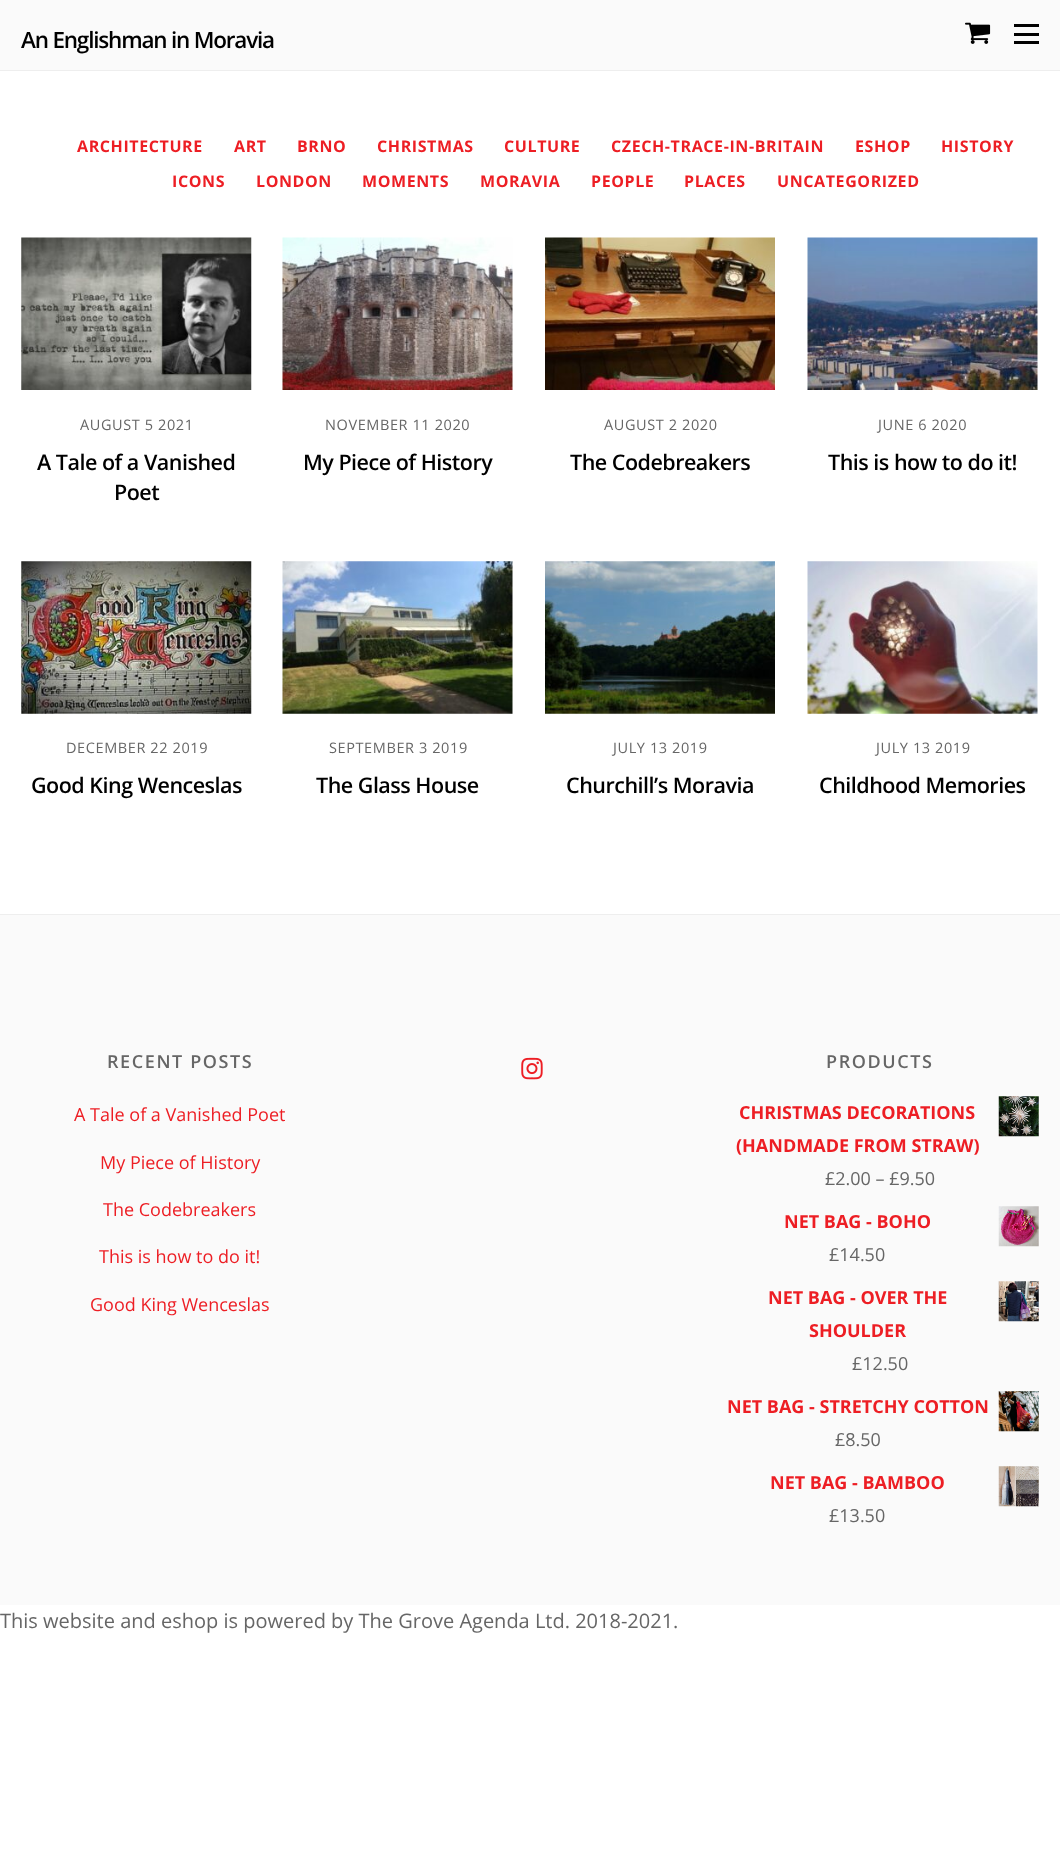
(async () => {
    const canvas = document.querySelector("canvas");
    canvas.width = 1060;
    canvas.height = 1857;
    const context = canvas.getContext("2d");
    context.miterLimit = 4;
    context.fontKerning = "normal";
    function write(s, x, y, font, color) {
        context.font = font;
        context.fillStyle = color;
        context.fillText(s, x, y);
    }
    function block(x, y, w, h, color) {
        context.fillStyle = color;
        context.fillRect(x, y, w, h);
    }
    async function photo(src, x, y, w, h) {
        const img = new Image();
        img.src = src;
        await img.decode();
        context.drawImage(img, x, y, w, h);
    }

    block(0, 0, 1060, 1857, "rgb(255, 255, 255)");
    block(0, 0, 1060, 70, "rgb(250, 250, 250)");
    block(0, 70, 1060, 1, "rgb(238, 238, 238)");
    context.letterSpacing = "-1.2px";
    write("An Englishman in Moravia", 21, 48, "600 22.5px Open Sans", "rgb(0, 0, 0)");
    await photo("media/1.png", 965, 22, 26, 22);
    block(1014, 41, 25, 3, "rgb(0, 0, 0)");
    block(1014, 24, 25, 3, "rgb(0, 0, 0)");
    block(1014, 33, 25, 3, "rgb(0, 0, 0)");
    context.letterSpacing = "0.6px";
    write("ARCHITECTURE", 77, 152, "bold 16px Open Sans", "rgb(237, 30, 36)");
    write("ART", 234, 152, "bold 16px Open Sans", "rgb(237, 30, 36)");
    write("BRNO", 297, 152, "bold 16px Open Sans", "rgb(237, 30, 36)");
    write("CHRISTMAS", 377, 152, "bold 16px Open Sans", "rgb(237, 30, 36)");
    write("CULTURE", 504, 152, "bold 16px Open Sans", "rgb(237, 30, 36)");
    write("CZECH-TRACE-IN-BRITAIN", 611, 152, "bold 16px Open Sans", "rgb(237, 30, 36)");
    write("ESHOP", 855, 152, "bold 16px Open Sans", "rgb(237, 30, 36)");
    write("HISTORY", 941, 152, "bold 16px Open Sans", "rgb(237, 30, 36)");
    write("ICONS", 172, 187, "bold 16px Open Sans", "rgb(237, 30, 36)");
    write("LONDON", 256, 187, "bold 16px Open Sans", "rgb(237, 30, 36)");
    write("MOMENTS", 362, 187, "bold 16px Open Sans", "rgb(237, 30, 36)");
    write("MORAVIA", 480, 187, "bold 16px Open Sans", "rgb(237, 30, 36)");
    write("PEOPLE", 591, 187, "bold 16px Open Sans", "rgb(237, 30, 36)");
    write("PLACES", 684, 187, "bold 16px Open Sans", "rgb(237, 30, 36)");
    write("UNCATEGORIZED", 777, 187, "bold 16px Open Sans", "rgb(237, 30, 36)");
    await photo("media/2.png", 21, 237, 231, 153);
    write("AUGUST 5 2021", 80, 430, "14.5px Open Sans", "rgb(102, 102, 102)");
    context.letterSpacing = "-0.5px";
    write("A Tale of a Vanished", 37, 470, "600 21.5px Open Sans", "rgb(0, 0, 0)");
    write("Poet", 114, 500, "600 21.5px Open Sans", "rgb(0, 0, 0)");
    await photo("media/3.png", 282, 237, 231, 153);
    context.letterSpacing = "0.6px";
    write("NOVEMBER 11 2020", 325, 430, "14.5px Open Sans", "rgb(102, 102, 102)");
    context.letterSpacing = "-0.5px";
    write("My Piece of History", 303, 470, "600 21.5px Open Sans", "rgb(0, 0, 0)");
    await photo("media/4.png", 545, 237, 230, 153);
    context.letterSpacing = "0.6px";
    write("AUGUST 2 2020", 604, 430, "14.5px Open Sans", "rgb(102, 102, 102)");
    context.letterSpacing = "-0.5px";
    write("The Codebreakers", 570, 470, "600 21.5px Open Sans", "rgb(0, 0, 0)");
    await photo("media/5.png", 807, 237, 231, 153);
    context.letterSpacing = "0.6px";
    write("JUNE 6 2020", 878, 430, "14.5px Open Sans", "rgb(102, 102, 102)");
    context.letterSpacing = "-0.5px";
    write("This is how to do it!", 828, 470, "600 21.5px Open Sans", "rgb(0, 0, 0)");
    await photo("media/6.png", 21, 561, 231, 153);
    context.letterSpacing = "0.6px";
    write("DECEMBER 22 2019", 66, 753, "14.5px Open Sans", "rgb(102, 102, 102)");
    context.letterSpacing = "-0.5px";
    write("Good King Wenceslas", 31, 793, "600 21.5px Open Sans", "rgb(0, 0, 0)");
    await photo("media/7.png", 282, 561, 231, 153);
    context.letterSpacing = "0.6px";
    write("SEPTEMBER 3 2019", 329, 753, "14.5px Open Sans", "rgb(102, 102, 102)");
    context.letterSpacing = "-0.5px";
    write("The Glass House", 316, 793, "600 21.5px Open Sans", "rgb(0, 0, 0)");
    await photo("media/8.png", 545, 561, 230, 153);
    context.letterSpacing = "0.6px";
    write("JULY 13 2019", 613, 753, "14.5px Open Sans", "rgb(102, 102, 102)");
    context.letterSpacing = "-0.5px";
    write("Churchill’s Moravia", 566, 793, "600 21.5px Open Sans", "rgb(0, 0, 0)");
    await photo("media/9.png", 807, 561, 231, 153);
    context.letterSpacing = "0.6px";
    write("JULY 13 2019", 876, 753, "14.5px Open Sans", "rgb(102, 102, 102)");
    context.letterSpacing = "-0.5px";
    write("Childhood Memories", 819, 793, "600 21.5px Open Sans", "rgb(0, 0, 0)");
    block(0, 915, 1060, 690, "rgb(250, 250, 250)");
    block(0, 914, 1060, 1, "rgb(238, 238, 238)");
    context.letterSpacing = "1.6px";
    write("RECENT POSTS", 107, 1068, "600 18px Open Sans", "rgb(102, 102, 102)");
    context.letterSpacing = "0px";
    write("A Tale of a Vanished Poet", 74, 1121, "18px Open Sans", "rgb(237, 30, 36)");
    write("My Piece of History", 100, 1169, "18px Open Sans", "rgb(237, 30, 36)");
    write("The Codebreakers", 103, 1216, "18px Open Sans", "rgb(237, 30, 36)");
    write("This is how to do it!", 99, 1263, "18px Open Sans", "rgb(237, 30, 36)");
    write("Good King Wenceslas", 90, 1311, "18px Open Sans", "rgb(237, 30, 36)");
    await photo("media/10.png", 521, 1057, 22, 23);
    context.letterSpacing = "1.6px";
    write("PRODUCTS", 826, 1068, "600 18px Open Sans", "rgb(102, 102, 102)");
    context.letterSpacing = "0px";
    write("CHRISTMAS DECORATIONS", 739, 1119, "bold 18px Open Sans", "rgb(237, 30, 36)");
    await photo("media/11.png", 998, 1096, 41, 41);
    write("(HANDMADE FROM STRAW)", 736, 1152, "bold 18px Open Sans", "rgb(237, 30, 36)");
    write("£2.00 – £9.50", 825, 1185, "18px Open Sans", "rgb(102, 102, 102)");
    write("NET BAG - BOHO", 784, 1228, "bold 18px Open Sans", "rgb(237, 30, 36)");
    await photo("media/12.png", 998, 1206, 41, 41);
    write("£14.50", 829, 1261, "18px Open Sans", "rgb(102, 102, 102)");
    write("NET BAG - OVER THE", 768, 1304, "bold 18px Open Sans", "rgb(237, 30, 36)");
    await photo("media/13.png", 998, 1281, 41, 41);
    write("SHOULDER", 809, 1337, "bold 18px Open Sans", "rgb(237, 30, 36)");
    write("£12.50", 852, 1370, "18px Open Sans", "rgb(102, 102, 102)");
    write("NET BAG - STRETCHY COTTON", 727, 1413, "bold 18px Open Sans", "rgb(237, 30, 36)");
    await photo("media/14.png", 998, 1391, 41, 41);
    write("£8.50", 835, 1446, "18px Open Sans", "rgb(102, 102, 102)");
    write("NET BAG - BAMBOO", 770, 1489, "bold 18px Open Sans", "rgb(237, 30, 36)");
    await photo("media/15.png", 998, 1466, 41, 41);
    write("£13.50", 829, 1522, "18px Open Sans", "rgb(102, 102, 102)");
    write("This website and eshop is powered by The Grove Agenda Ltd. 2018-2021.", 0, 1628, "20px Open Sans", "rgb(102, 102, 102)");
})();
